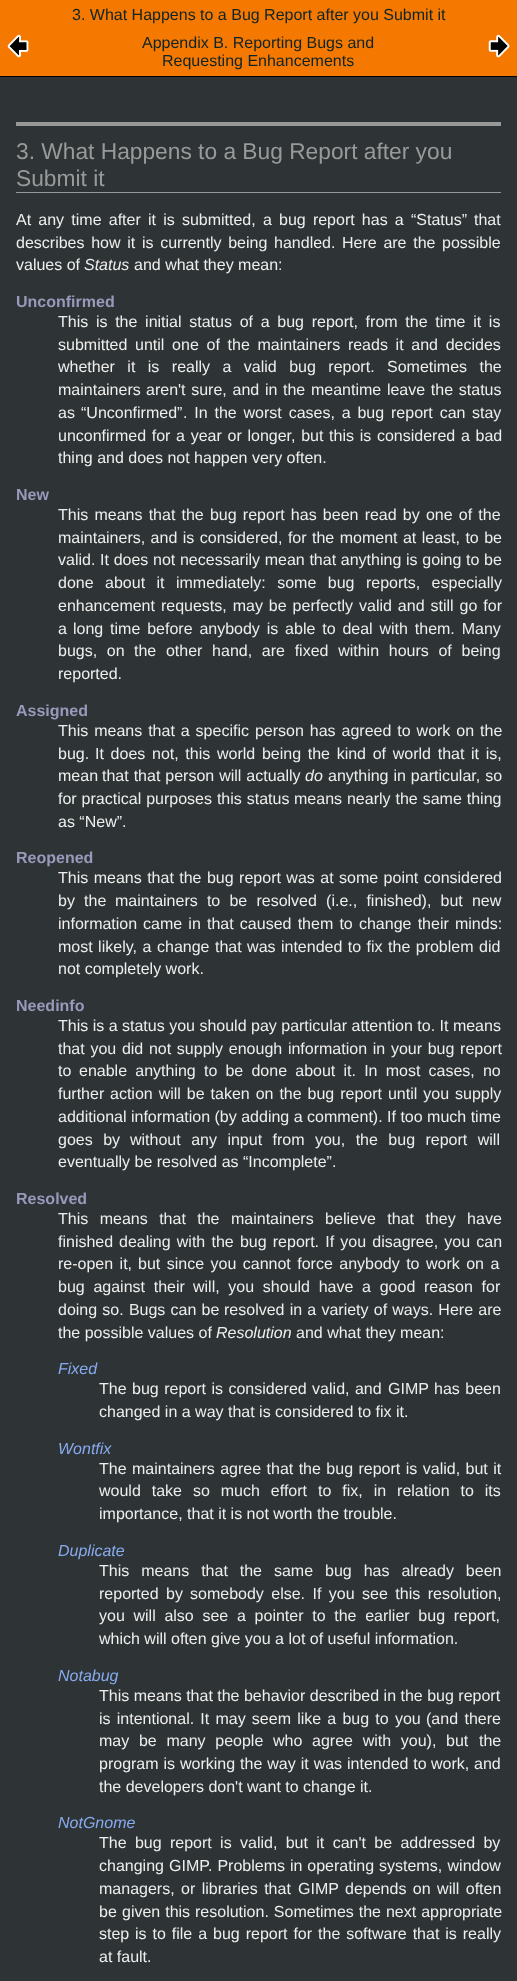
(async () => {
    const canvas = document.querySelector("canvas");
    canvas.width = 517;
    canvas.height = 1981;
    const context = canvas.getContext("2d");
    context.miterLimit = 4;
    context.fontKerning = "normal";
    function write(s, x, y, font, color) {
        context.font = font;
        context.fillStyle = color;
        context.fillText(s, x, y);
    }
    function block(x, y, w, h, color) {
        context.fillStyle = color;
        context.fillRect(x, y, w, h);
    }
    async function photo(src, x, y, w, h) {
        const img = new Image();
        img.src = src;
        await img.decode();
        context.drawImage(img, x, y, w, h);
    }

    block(0, 0, 517, 1981, "rgb(46, 52, 54)");
    block(0, 0, 517, 76, "rgb(245, 121, 0)");
    block(0, 76, 517, 1, "rgb(0, 0, 0)");
    write("3. What Happens to a Bug Report after you Submit it", 72, 20, "16px Liberation Sans", "rgb(14, 36, 38)");
    await photo("media/1.png", 7, 34, 22, 24);
    write("Appendix B. Reporting Bugs and", 142, 48, "16px Liberation Sans", "rgb(14, 36, 38)");
    write("Requesting Enhancements", 162, 66, "16px Liberation Sans", "rgb(14, 36, 38)");
    await photo("media/2.png", 488, 34, 22, 24);
    block(16, 122, 485, 4, "rgb(153, 153, 153)");
    block(16, 192, 485, 1, "rgb(153, 153, 153)");
    write("3. What Happens to a Bug Report after you", 16, 159, "22.75px Liberation Sans", "rgb(153, 153, 153)");
    write("Submit it", 16, 186, "22.75px Liberation Sans", "rgb(153, 153, 153)");
    context.wordSpacing = "2.75px";
    write("At any time after it is submitted, a bug report has a", 16, 225, "16px Liberation Sans", "rgb(238, 238, 236)");
    context.wordSpacing = "0px";
    write("“Status”", 411, 225, "16px Liberation Sans", "rgb(238, 238, 236)");
    write("that", 474, 225, "16px Liberation Sans", "rgb(238, 238, 236)");
    context.wordSpacing = "2.25px";
    write("describes how it is currently being handled.", 16, 248, "16px Liberation Sans", "rgb(238, 238, 236)");
    write("Here are the", 342, 248, "16px Liberation Sans", "rgb(238, 238, 236)");
    context.wordSpacing = "0px";
    write("possible", 442, 248, "16px Liberation Sans", "rgb(238, 238, 236)");
    write("values of", 16, 270, "16px Liberation Sans", "rgb(238, 238, 236)");
    write("Status", 84, 270, "italic 16px Liberation Sans", "rgb(238, 238, 236)");
    write("and what they mean:", 134, 270, "16px Liberation Sans", "rgb(238, 238, 236)");
    write("Unconfirmed", 16, 307, "bold 16px Liberation Sans", "rgb(153, 153, 187)");
    context.wordSpacing = "3.25px";
    write("This is the initial status of a bug report, from the time it is", 58, 327, "16px Liberation Sans", "rgb(238, 238, 236)");
    write("submitted until one of the maintainers reads it and decides", 58, 350, "16px Liberation Sans", "rgb(238, 238, 236)");
    context.wordSpacing = "8px";
    write("whether it is really a valid bug report. Sometimes the", 58, 372, "16px Liberation Sans", "rgb(238, 238, 236)");
    context.wordSpacing = "0px";
    write("maintainers", 58, 395, "16px Liberation Sans", "rgb(238, 238, 236)");
    context.wordSpacing = "1.25px";
    write("aren't sure, and in the meantime leave the status", 146, 395, "16px Liberation Sans", "rgb(238, 238, 236)");
    context.wordSpacing = "0px";
    write("as", 58, 418, "16px Liberation Sans", "rgb(238, 238, 236)");
    write("“Unconfirmed”", 81, 418, "16px Liberation Sans", "rgb(238, 238, 236)");
    context.wordSpacing = "2.4px";
    write(". In the worst cases, a bug report can", 183, 418, "16px Liberation Sans", "rgb(238, 238, 236)");
    context.wordSpacing = "0px";
    write("stay", 472, 418, "16px Liberation Sans", "rgb(238, 238, 236)");
    context.wordSpacing = "1.25px";
    write("unconfirmed for a year or longer, but this is considered a bad", 58, 441, "16px Liberation Sans", "rgb(238, 238, 236)");
    context.wordSpacing = "0px";
    write("thing and does not happen very often.", 58, 463, "16px Liberation Sans", "rgb(238, 238, 236)");
    write("New", 16, 500, "bold 16px Liberation Sans", "rgb(153, 153, 187)");
    context.wordSpacing = "1.75px";
    write("This means that the bug report has been read by one of the", 58, 520, "16px Liberation Sans", "rgb(238, 238, 236)");
    context.wordSpacing = "1px";
    write("maintainers, and is considered, for the moment at least, to be", 58, 543, "16px Liberation Sans", "rgb(238, 238, 236)");
    context.wordSpacing = "0.25px";
    write("valid. It does not necessarily mean that anything is going to be", 58, 565, "16px Liberation Sans", "rgb(238, 238, 236)");
    context.wordSpacing = "7px";
    write("done about it immediately: some bug reports, especially", 58, 588, "16px Liberation Sans", "rgb(238, 238, 236)");
    context.wordSpacing = "1.5px";
    write("enhancement requests, may be perfectly valid and still go for", 58, 611, "16px Liberation Sans", "rgb(238, 238, 236)");
    context.wordSpacing = "0px";
    write("a", 58, 634, "16px Liberation Sans", "rgb(238, 238, 236)");
    context.wordSpacing = "2.4px";
    write("long time before anybody is able to deal with them. Many", 73, 634, "16px Liberation Sans", "rgb(238, 238, 236)");
    context.wordSpacing = "5.25px";
    write("bugs, on", 58, 656, "16px Liberation Sans", "rgb(238, 238, 236)");
    write("the other hand, are fixed within hours of being", 134, 656, "16px Liberation Sans", "rgb(238, 238, 236)");
    context.wordSpacing = "0px";
    write("reported.", 58, 679, "16px Liberation Sans", "rgb(238, 238, 236)");
    write("Assigned", 16, 716, "bold 16px Liberation Sans", "rgb(153, 153, 187)");
    context.wordSpacing = "1.5px";
    write("This means that a specific person has agreed to work on the", 58, 736, "16px Liberation Sans", "rgb(238, 238, 236)");
    context.wordSpacing = "0px";
    write("bug.", 58, 759, "16px Liberation Sans", "rgb(238, 238, 236)");
    context.wordSpacing = "2.25px";
    write("It does not, this world being the kind of world that it is,", 95, 759, "16px Liberation Sans", "rgb(238, 238, 236)");
    context.wordSpacing = "0px";
    write("mean", 58, 781, "16px Liberation Sans", "rgb(238, 238, 236)");
    context.wordSpacing = "0.5px";
    write("that that person will actually", 102, 781, "16px Liberation Sans", "rgb(238, 238, 236)");
    context.wordSpacing = "0px";
    write("do", 305, 781, "italic 16px Liberation Sans", "rgb(238, 238, 236)");
    context.wordSpacing = "0.5px";
    write("anything in particular, so", 328, 781, "16px Liberation Sans", "rgb(238, 238, 236)");
    write("for practical purposes this status", 58, 804, "16px Liberation Sans", "rgb(238, 238, 236)");
    write("means nearly the same thing", 294, 804, "16px Liberation Sans", "rgb(238, 238, 236)");
    context.wordSpacing = "0px";
    write("as “New”.", 58, 827, "16px Liberation Sans", "rgb(238, 238, 236)");
    write("Reopened", 16, 863, "bold 16px Liberation Sans", "rgb(153, 153, 187)");
    context.wordSpacing = "1px";
    write("This means that the bug report was at some point considered", 58, 883, "16px Liberation Sans", "rgb(238, 238, 236)");
    context.wordSpacing = "4.75px";
    write("by the", 58, 906, "16px Liberation Sans", "rgb(238, 238, 236)");
    write("maintainers to be resolved (i.e., finished), but new", 115, 906, "16px Liberation Sans", "rgb(238, 238, 236)");
    context.wordSpacing = "0px";
    write("information", 58, 929, "16px Liberation Sans", "rgb(238, 238, 236)");
    context.wordSpacing = "1.75px";
    write("came in that caused them to change their minds:", 143, 929, "16px Liberation Sans", "rgb(238, 238, 236)");
    context.wordSpacing = "1px";
    write("most likely, a", 58, 952, "16px Liberation Sans", "rgb(238, 238, 236)");
    write("change that was intended to fix the problem did", 157, 952, "16px Liberation Sans", "rgb(238, 238, 236)");
    context.wordSpacing = "0px";
    write("not completely work.", 58, 974, "16px Liberation Sans", "rgb(238, 238, 236)");
    write("Needinfo", 16, 1011, "bold 16px Liberation Sans", "rgb(153, 153, 187)");
    write("This is a status you should pay particular attention to. It means", 58, 1031, "16px Liberation Sans", "rgb(238, 238, 236)");
    context.wordSpacing = "1.25px";
    write("that you did not supply enough information in your bug report", 58, 1054, "16px Liberation Sans", "rgb(238, 238, 236)");
    context.wordSpacing = "0px";
    write("to", 58, 1076, "16px Liberation Sans", "rgb(238, 238, 236)");
    context.wordSpacing = "3.75px";
    write("enable anything to be done about it. In most cases, no", 79, 1076, "16px Liberation Sans", "rgb(238, 238, 236)");
    context.wordSpacing = "0px";
    write("further", 58, 1099, "16px Liberation Sans", "rgb(238, 238, 236)");
    context.wordSpacing = "1.5px";
    write("action will be taken on the bug report until you supply", 110, 1099, "16px Liberation Sans", "rgb(238, 238, 236)");
    context.wordSpacing = "0px";
    write("additional information (by adding a comment). If too much time", 58, 1122, "16px Liberation Sans", "rgb(238, 238, 236)");
    context.wordSpacing = "6px";
    write("goes by", 58, 1145, "16px Liberation Sans", "rgb(238, 238, 236)");
    write("without any input from you, the bug report will", 130, 1145, "16px Liberation Sans", "rgb(238, 238, 236)");
    context.wordSpacing = "0px";
    write("eventually be resolved as “Incomplete”.", 58, 1167, "16px Liberation Sans", "rgb(238, 238, 236)");
    write("Resolved", 16, 1204, "bold 16px Liberation Sans", "rgb(153, 153, 187)");
    context.wordSpacing = "7px";
    write("This means that the maintainers believe that they have", 58, 1224, "16px Liberation Sans", "rgb(238, 238, 236)");
    context.wordSpacing = "0px";
    write("finished", 58, 1247, "16px Liberation Sans", "rgb(238, 238, 236)");
    context.wordSpacing = "1.75px";
    write("dealing with the bug report. If you disagree, you can", 119, 1247, "16px Liberation Sans", "rgb(238, 238, 236)");
    context.wordSpacing = "2px";
    write("re-open it,", 58, 1269, "16px Liberation Sans", "rgb(238, 238, 236)");
    write("but since you cannot force anybody to work on a", 138, 1269, "16px Liberation Sans", "rgb(238, 238, 236)");
    context.wordSpacing = "4.25px";
    write("bug against their", 58, 1292, "16px Liberation Sans", "rgb(238, 238, 236)");
    write("will, you should have a good reason for", 193, 1292, "16px Liberation Sans", "rgb(238, 238, 236)");
    context.wordSpacing = "0.75px";
    write("doing so. Bugs can be", 58, 1315, "16px Liberation Sans", "rgb(238, 238, 236)");
    write("resolved in a variety of ways. Here are", 224, 1315, "16px Liberation Sans", "rgb(238, 238, 236)");
    context.wordSpacing = "0px";
    write("the possible values of", 58, 1338, "16px Liberation Sans", "rgb(238, 238, 236)");
    write("Resolution", 216, 1338, "italic 16px Liberation Sans", "rgb(238, 238, 236)");
    write("and what they mean:", 296, 1338, "16px Liberation Sans", "rgb(238, 238, 236)");
    write("Fixed", 58, 1374, "italic 16px Liberation Sans", "rgb(136, 170, 238)");
    context.wordSpacing = "1px";
    write("The bug report is considered valid, and", 99, 1394, "16px Liberation Sans", "rgb(238, 238, 236)");
    context.wordSpacing = "0px";
    write("GIMP", 388, 1394, "16px Liberation Sans", "rgb(238, 238, 236)");
    context.wordSpacing = "1px";
    write("has been", 434, 1394, "16px Liberation Sans", "rgb(238, 238, 236)");
    context.wordSpacing = "0px";
    write("changed in a way that is considered to fix it.", 99, 1417, "16px Liberation Sans", "rgb(238, 238, 236)");
    write("Wontfix", 58, 1454, "italic 16px Liberation Sans", "rgb(136, 170, 238)");
    context.wordSpacing = "1px";
    write("The maintainers agree that the bug report is valid, but it", 99, 1474, "16px Liberation Sans", "rgb(238, 238, 236)");
    context.wordSpacing = "6.5px";
    write("would take so much effort to fix, in relation to its", 99, 1496, "16px Liberation Sans", "rgb(238, 238, 236)");
    context.wordSpacing = "0px";
    write("importance, that it is not worth the trouble.", 99, 1519, "16px Liberation Sans", "rgb(238, 238, 236)");
    write("Duplicate", 58, 1556, "italic 16px Liberation Sans", "rgb(136, 170, 238)");
    context.wordSpacing = "7.5px";
    write("This means that the same bug has already been", 99, 1576, "16px Liberation Sans", "rgb(238, 238, 236)");
    context.wordSpacing = "3px";
    write("reported by", 99, 1599, "16px Liberation Sans", "rgb(238, 238, 236)");
    write("somebody else. If you see this resolution,", 190, 1599, "16px Liberation Sans", "rgb(238, 238, 236)");
    context.wordSpacing = "4.25px";
    write("you will also see", 99, 1621, "16px Liberation Sans", "rgb(238, 238, 236)");
    write("a pointer to the earlier bug report,", 237, 1621, "16px Liberation Sans", "rgb(238, 238, 236)");
    context.wordSpacing = "0px";
    write("which will often give you a lot of useful information.", 99, 1644, "16px Liberation Sans", "rgb(238, 238, 236)");
    write("Notabug", 58, 1681, "italic 16px Liberation Sans", "rgb(136, 170, 238)");
    write("This means that the behavior described in the bug report", 99, 1701, "16px Liberation Sans", "rgb(238, 238, 236)");
    context.wordSpacing = "1.75px";
    write("is intentional. It may seem like a bug to you", 99, 1724, "16px Liberation Sans", "rgb(238, 238, 236)");
    context.wordSpacing = "2px";
    write("(and there", 426, 1724, "16px Liberation Sans", "rgb(238, 238, 236)");
    context.wordSpacing = "5.25px";
    write("may be many people who agree with you), but", 99, 1746, "16px Liberation Sans", "rgb(238, 238, 236)");
    context.wordSpacing = "0px";
    write("the", 479, 1746, "16px Liberation Sans", "rgb(238, 238, 236)");
    context.wordSpacing = "0.5px";
    write("program is working the way it was intended to", 99, 1769, "16px Liberation Sans", "rgb(238, 238, 236)");
    context.wordSpacing = "0px";
    write("work,", 431, 1769, "16px Liberation Sans", "rgb(238, 238, 236)");
    write("and", 474, 1769, "16px Liberation Sans", "rgb(238, 238, 236)");
    write("the developers don't want to change it.", 99, 1792, "16px Liberation Sans", "rgb(238, 238, 236)");
    write("NotGnome", 58, 1828, "italic 16px Liberation Sans", "rgb(136, 170, 238)");
    context.wordSpacing = "3.9px";
    write("The bug report is valid, but it can't be addressed by", 99, 1848, "16px Liberation Sans", "rgb(238, 238, 236)");
    context.wordSpacing = "0px";
    write("changing", 99, 1871, "16px Liberation Sans", "rgb(238, 238, 236)");
    write("GIMP", 169, 1871, "16px Liberation Sans", "rgb(238, 238, 236)");
    context.wordSpacing = "0.5px";
    write(". Problems in operating", 208, 1871, "16px Liberation Sans", "rgb(238, 238, 236)");
    context.wordSpacing = "1px";
    write("systems, window", 379, 1871, "16px Liberation Sans", "rgb(238, 238, 236)");
    context.wordSpacing = "2px";
    write("managers, or libraries that", 99, 1894, "16px Liberation Sans", "rgb(238, 238, 236)");
    context.wordSpacing = "0px";
    write("GIMP", 298, 1894, "16px Liberation Sans", "rgb(238, 238, 236)");
    context.wordSpacing = "2px";
    write("depends on will often", 345, 1894, "16px Liberation Sans", "rgb(238, 238, 236)");
    context.wordSpacing = "0px";
    write("be", 99, 1917, "16px Liberation Sans", "rgb(238, 238, 236)");
    context.wordSpacing = "0.5px";
    write("given this resolution. Sometimes the next appropriate", 122, 1917, "16px Liberation Sans", "rgb(238, 238, 236)");
    context.wordSpacing = "0px";
    write("step", 99, 1939, "16px Liberation Sans", "rgb(238, 238, 236)");
    context.wordSpacing = "1.5px";
    write("is to file a bug report for the software that is really", 135, 1939, "16px Liberation Sans", "rgb(238, 238, 236)");
    context.wordSpacing = "0px";
    write("at fault.", 99, 1962, "16px Liberation Sans", "rgb(238, 238, 236)");
})();
